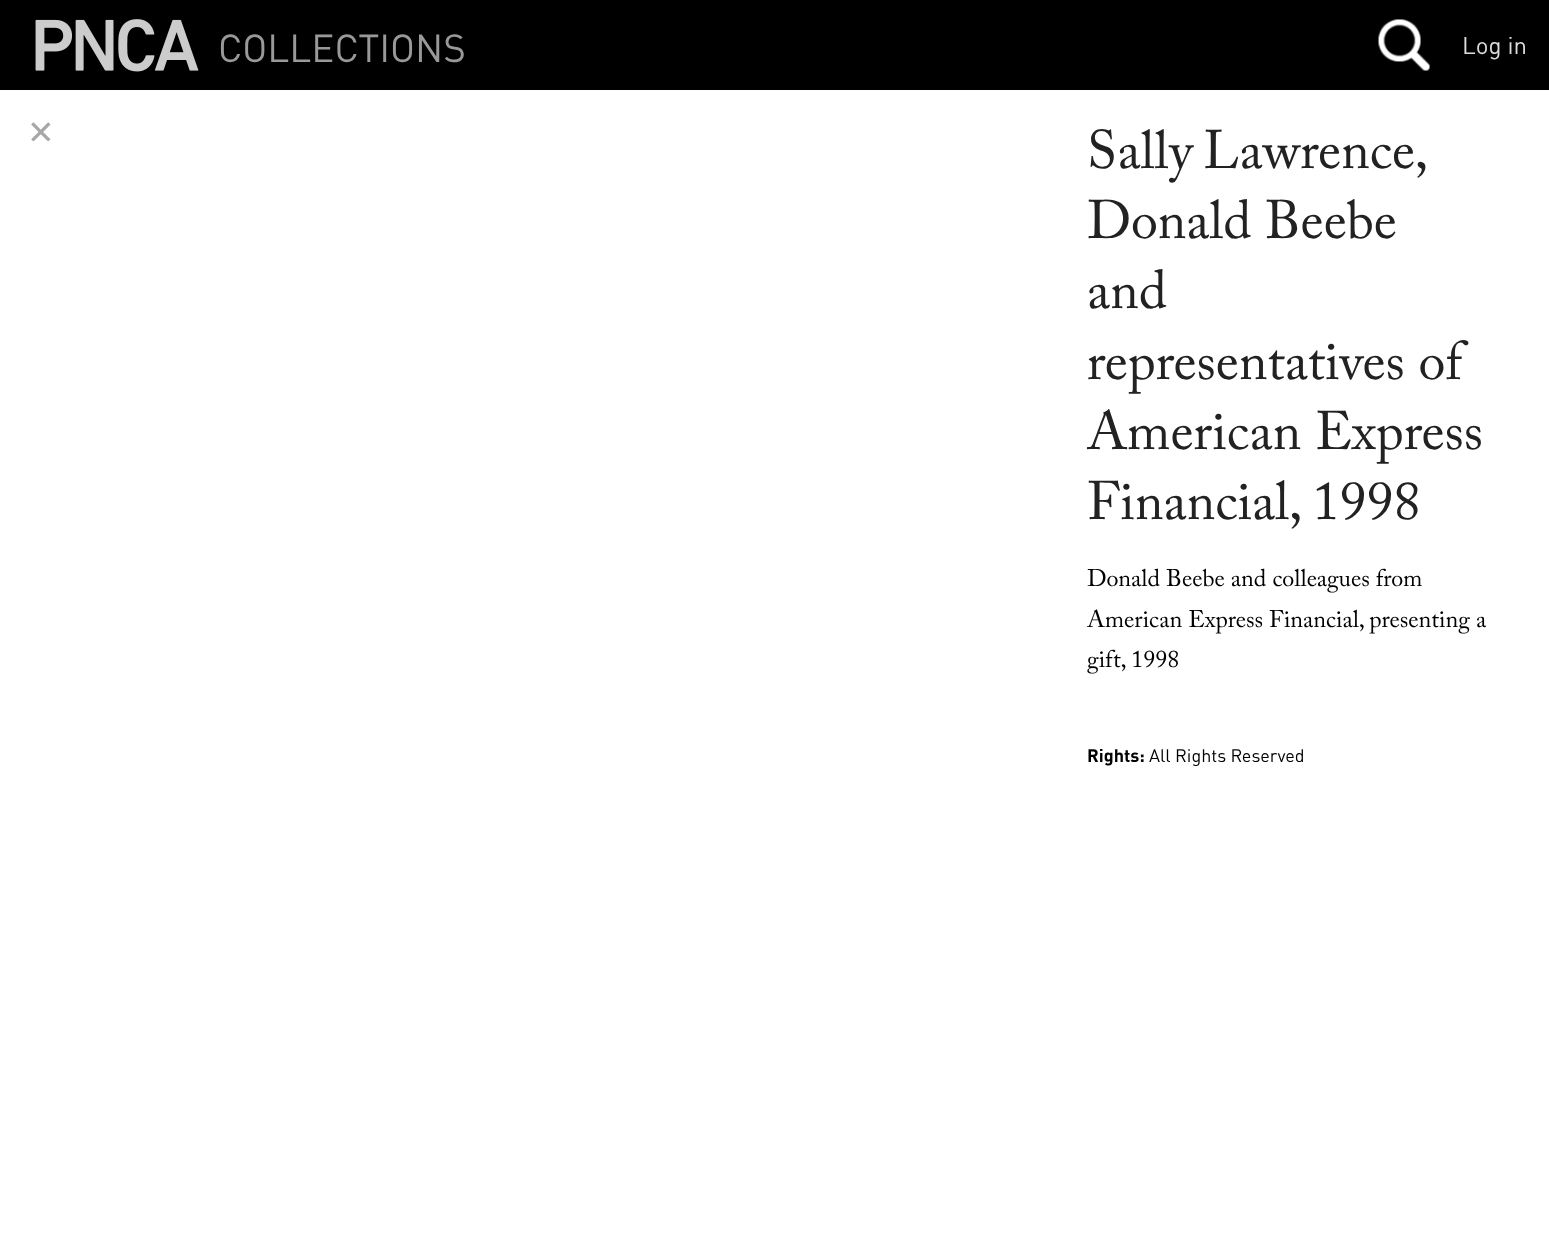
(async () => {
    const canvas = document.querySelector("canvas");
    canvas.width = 1549;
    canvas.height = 1254;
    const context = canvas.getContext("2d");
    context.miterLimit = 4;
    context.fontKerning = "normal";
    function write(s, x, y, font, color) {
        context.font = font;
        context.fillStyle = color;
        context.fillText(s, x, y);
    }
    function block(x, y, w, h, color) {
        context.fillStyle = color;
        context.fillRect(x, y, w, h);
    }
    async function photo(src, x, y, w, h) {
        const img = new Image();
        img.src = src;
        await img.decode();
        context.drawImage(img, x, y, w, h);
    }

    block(0, 0, 1549, 1254, "rgb(255, 255, 255)");
    block(0, 0, 1549, 90, "rgb(0, 0, 0)");
    await photo("media/1.png", 35, 19, 164, 53);
    write("COLLECTIONS", 218, 62, "38.5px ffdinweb", "rgb(153, 153, 153)");
    await photo("media/2.png", 1378, 19, 52, 52);
    write("Log in", 1462, 54, "24px ffdinweb", "rgb(221, 221, 221)");
    context.save();
    context.beginPath();
    context.rect(0, 111, 1023, 30);
    context.clip();
    write("✕", 27, 144, "33px DejaVu Sans", "rgb(167, 167, 167)");
    context.restore();
    context.wordSpacing = "-3px";
    write("Sally Lawrence,", 1087, 168, "54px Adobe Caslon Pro", "rgb(34, 34, 34)");
    context.wordSpacing = "0px";
    write("Donald Beebe", 1087, 238, "54px Adobe Caslon Pro", "rgb(34, 34, 34)");
    write("and", 1087, 308, "54px Adobe Caslon Pro", "rgb(34, 34, 34)");
    write("representatives of", 1087, 379, "54px Adobe Caslon Pro", "rgb(34, 34, 34)");
    write("American Express", 1087, 449, "54px Adobe Caslon Pro", "rgb(34, 34, 34)");
    write("Financial, 1998", 1087, 519, "54px Adobe Caslon Pro", "rgb(34, 34, 34)");
    write("Donald Beebe and colleagues from", 1087, 586, "24px Adobe Caslon Pro", "rgb(0, 0, 0)");
    write("American Express Financial, presenting a", 1087, 627, "24px Adobe Caslon Pro", "rgb(0, 0, 0)");
    write("gift, 1998", 1087, 667, "24px Adobe Caslon Pro", "rgb(0, 0, 0)");
    write("Rights:", 1087, 762, "bold 18px ffdinweb", "rgb(0, 0, 0)");
    write("All Rights Reserved", 1149, 762, "18px ffdinweb", "rgb(0, 0, 0)");
})();
